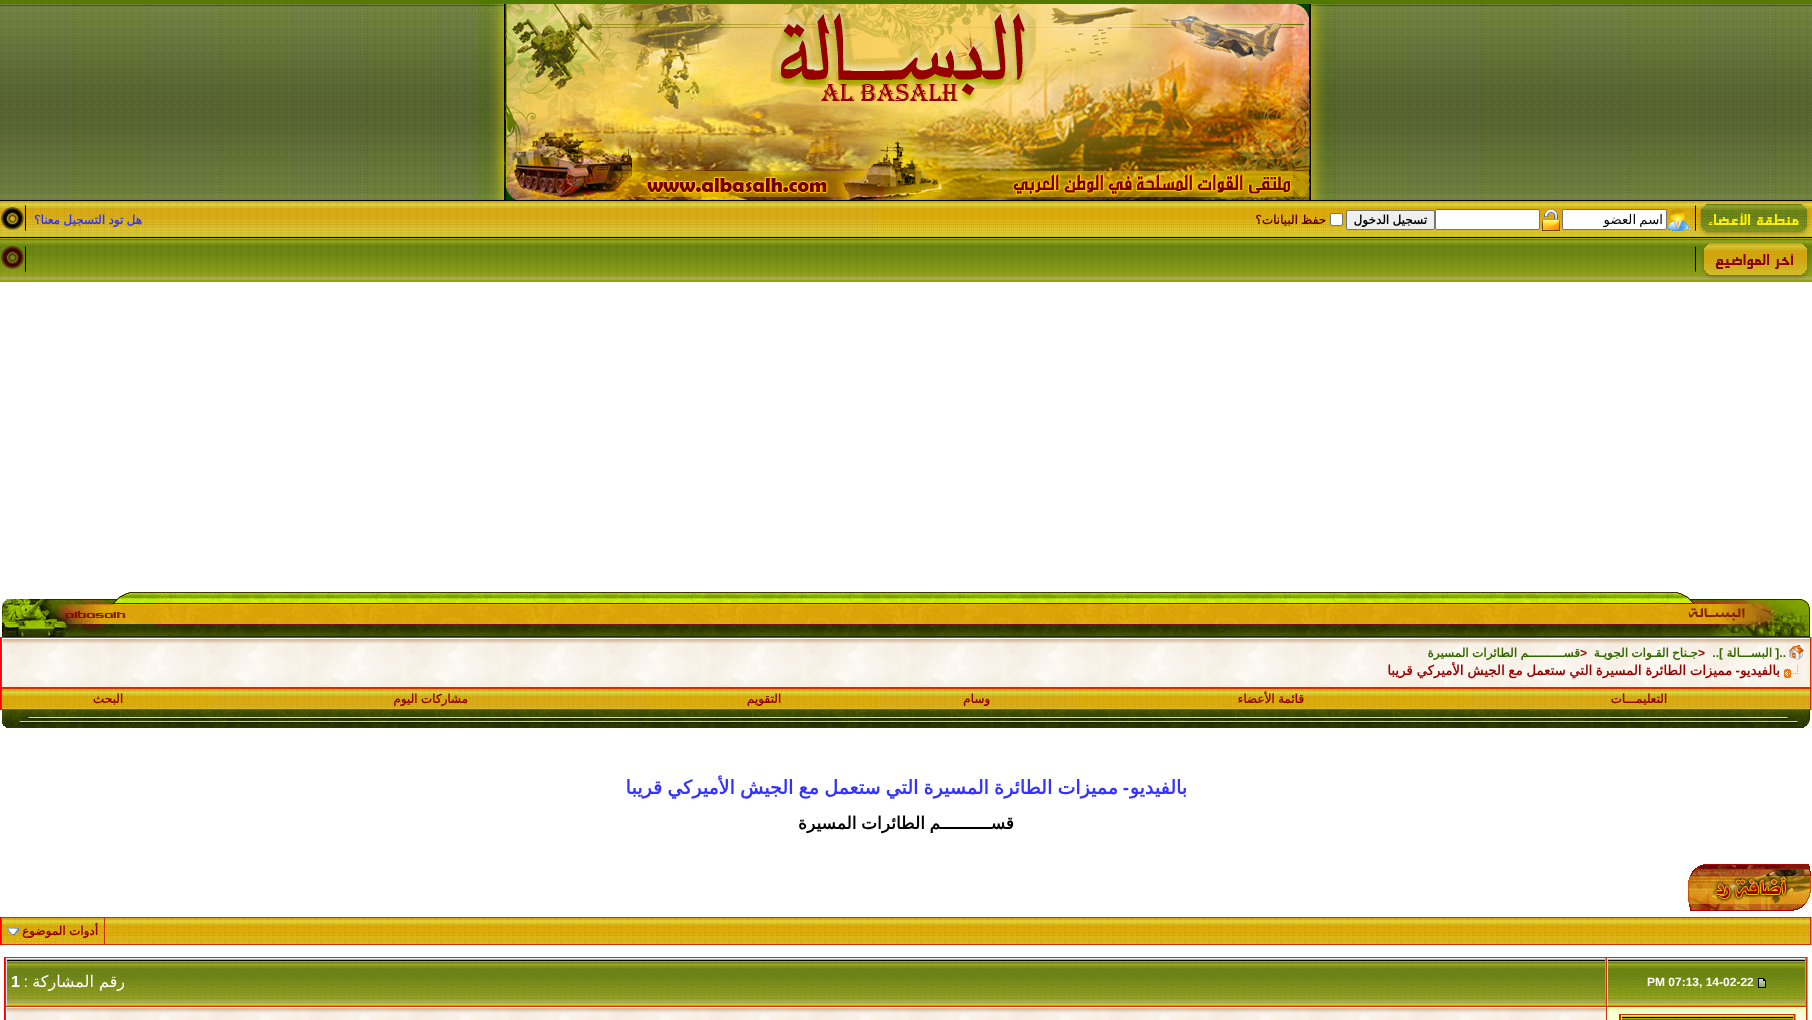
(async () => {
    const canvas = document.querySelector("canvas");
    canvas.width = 1812;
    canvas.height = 1020;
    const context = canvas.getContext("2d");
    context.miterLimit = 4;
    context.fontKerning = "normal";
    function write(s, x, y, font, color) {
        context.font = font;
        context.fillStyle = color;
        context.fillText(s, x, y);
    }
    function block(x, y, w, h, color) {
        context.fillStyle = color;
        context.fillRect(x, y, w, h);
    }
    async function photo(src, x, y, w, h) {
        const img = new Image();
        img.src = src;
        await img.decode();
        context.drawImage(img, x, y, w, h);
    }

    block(0, 0, 1812, 1020, "rgb(255, 255, 255)");
    await photo("media/1.png", 1335, 0, 477, 201);
    await photo("media/2.png", 477, 0, 858, 201);
    await photo("media/1.png", 0, 0, 477, 201);
    await photo("media/3.png", 1689, 201, 123, 37);
    await photo("media/4.png", 34, 201, 1655, 37);
    await photo("media/5.png", 1667, 209, 22, 22);
    context.beginPath();
    context.roundRect(1562.5, 209.5, 104, 20, 1.5);
    context.fill();
    context.strokeStyle = "rgb(118, 118, 118)";
    context.stroke();
    context.save();
    context.beginPath();
    context.rect(1566, 212, 97, 15);
    context.clip();
    context.wordSpacing = "-1px";
    context.direction = "rtl";
    write("اسم العضو", 1663, 224, "13.3px DejaVu Sans", "rgb(0, 0, 0)");
    context.restore();
    await photo("media/6.png", 1542, 209, 18, 22);
    context.beginPath();
    context.roundRect(1435.5, 209.5, 104, 20, 1.5);
    context.fill();
    context.stroke();
    context.fillStyle = "rgb(239, 239, 239)";
    context.beginPath();
    context.roundRect(1346.5, 210.5, 88, 19, 1.5);
    context.fill();
    context.stroke();
    context.wordSpacing = "-0.5px";
    context.direction = "rtl";
    write("تسجيل الدخول", 1427, 224, "bold 12px DejaVu Sans", "rgb(0, 0, 0)");
    context.fillStyle = "rgb(255, 255, 255)";
    context.beginPath();
    context.roundRect(1330.5, 213.5, 12, 12, 1.5);
    context.fill();
    context.stroke();
    write("حفظ البيانات؟", 1326, 224, "bold 12px DejaVu Sans", "rgb(102, 0, 0)");
    write("هل تود التسجيل معنا؟", 142, 224, "bold 12px DejaVu Sans", "rgb(51, 51, 255)");
    await photo("media/7.png", 0, 201, 34, 37);
    await photo("media/8.png", 1689, 238, 123, 44);
    await photo("media/9.png", 34, 238, 1655, 44);
    await photo("media/10.png", 0, 238, 34, 44);
    await photo("media/11.png", 1663, 592, 147, 45);
    await photo("media/12.png", 155, 592, 1508, 45);
    await photo("media/13.png", 2, 592, 153, 45);
    block(1, 637, 1810, 73, "rgb(204, 51, 0)");
    block(1811, 637, 1, 73, "rgb(158, 179, 121)");
    block(0, 637, 1, 73, "rgb(255, 0, 0)");
    block(3, 638, 1807, 1, "rgb(255, 255, 255)");
    await photo("media/14.png", 3, 639, 1807, 48);
    block(2, 638, 1, 49, "rgb(255, 255, 255)");
    await photo("media/15.png", 1789, 645, 15, 15);
    context.wordSpacing = "0px";
    write("..[", 1786, 657, "bold 12px Liberation Sans", "rgb(51, 102, 0)");
    write("البســـالة", 1772, 657, "bold 12px DejaVu Sans", "rgb(51, 102, 0)");
    write("]..", 1723, 657, "bold 12px Liberation Sans", "rgb(51, 102, 0)");
    context.direction = "ltr";
    write(">", 1698, 657, "bold 12px Liberation Sans", "rgb(153, 0, 0)");
    context.wordSpacing = "-0.5px";
    context.direction = "rtl";
    write("جـناح القـوات الجويـة", 1698, 657, "bold 12px DejaVu Sans", "rgb(51, 102, 0)");
    context.wordSpacing = "0px";
    context.direction = "ltr";
    write(">", 1580, 657, "bold 12px Liberation Sans", "rgb(153, 0, 0)");
    context.wordSpacing = "-0.5px";
    context.direction = "rtl";
    write("قســــــــــم الطائرات المسيرة", 1580, 657, "bold 12px DejaVu Sans", "rgb(51, 102, 0)");
    await photo("media/16.png", 1784, 665, 14, 13);
    context.wordSpacing = "0px";
    write("-", 1740, 675, "bold 13.3px Liberation Sans", "rgb(153, 0, 0)");
    write("بالفيديو", 1780, 675, "bold 13.3px DejaVu Sans", "rgb(153, 0, 0)");
    context.wordSpacing = "-0.5px";
    write("مميزات الطائرة المسيرة التي ستعمل مع الجيش الأميركي قريبا", 1732, 675, "bold 13.3px DejaVu Sans", "rgb(153, 0, 0)");
    await photo("media/17.png", 1467, 689, 343, 20);
    context.wordSpacing = "0px";
    write("التعليمـــات", 1667, 703, "bold 12px DejaVu Sans", "rgb(147, 0, 0)");
    await photo("media/18.png", 1074, 689, 393, 20);
    context.wordSpacing = "-0.5px";
    write("قائمة الأعضاء", 1304, 703, "bold 12px DejaVu Sans", "rgb(147, 0, 0)");
    await photo("media/19.png", 879, 689, 195, 20);
    context.wordSpacing = "0px";
    write("وسام", 990, 703, "bold 12px DejaVu Sans", "rgb(147, 0, 0)");
    await photo("media/20.png", 648, 689, 231, 20);
    write("التقويم", 781, 703, "bold 12px DejaVu Sans", "rgb(147, 0, 0)");
    await photo("media/21.png", 213, 689, 435, 20);
    context.wordSpacing = "-0.5px";
    write("مشاركات اليوم", 468, 703, "bold 12px DejaVu Sans", "rgb(147, 0, 0)");
    await photo("media/22.png", 2, 689, 211, 20);
    context.wordSpacing = "0px";
    write("البحث", 123, 703, "bold 12px DejaVu Sans", "rgb(147, 0, 0)");
    await photo("media/23.png", 1663, 710, 147, 18);
    await photo("media/24.png", 155, 710, 1508, 18);
    await photo("media/25.png", 2, 710, 153, 18);
    write("-", 1129, 794, "bold 19px Liberation Sans", "rgb(51, 51, 255)");
    write("بالفيديو", 1187, 794, "bold 19px DejaVu Sans", "rgb(51, 51, 255)");
    context.wordSpacing = "-0.75px";
    write("مميزات الطائرة المسيرة التي ستعمل مع الجيش الأميركي قريبا", 1118, 794, "bold 19px DejaVu Sans", "rgb(51, 51, 255)");
    write("قســــــــــم الطائرات المسيرة", 1014, 829, "bold 17px DejaVu Sans", "rgb(0, 0, 0)");
    await photo("media/26.png", 1688, 864, 123, 47);
    block(1, 917, 1810, 28, "rgb(204, 51, 0)");
    block(1811, 917, 1, 28, "rgb(158, 179, 121)");
    block(0, 917, 1, 28, "rgb(255, 0, 0)");
    await photo("media/27.png", 105, 918, 1705, 26);
    await photo("media/28.png", 2, 918, 102, 26);
    context.wordSpacing = "-0.5px";
    write("أدوات الموضوع", 98, 935, "bold 12px DejaVu Sans", "rgb(147, 0, 0)");
    await photo("media/29.png", 8, 928, 11, 7);
    block(5, 957, 1802, 63, "rgb(204, 51, 0)");
    block(1807, 957, 1, 63, "rgb(158, 179, 121)");
    block(4, 957, 1, 63, "rgb(255, 0, 0)");
    await photo("media/30.png", 1608, 959, 197, 46);
    block(1607, 958, 199, 1, "rgb(238, 238, 238)");
    block(1805, 958, 1, 48, "rgb(159, 159, 159)");
    block(1607, 1005, 199, 1, "rgb(159, 159, 159)");
    block(1607, 958, 1, 48, "rgb(238, 238, 238)");
    await photo("media/31.png", 1758, 978, 8, 10);
    context.wordSpacing = "0px";
    context.direction = "ltr";
    write("PM 07:13, 14-02-22", 1647, 986, "bold 12px Liberation Sans", "rgb(255, 255, 255)");
    await photo("media/32.png", 7, 959, 1598, 46);
    block(6, 958, 1600, 1, "rgb(238, 238, 238)");
    block(1605, 958, 1, 48, "rgb(159, 159, 159)");
    block(6, 1005, 1600, 1, "rgb(159, 159, 159)");
    block(6, 958, 1, 48, "rgb(238, 238, 238)");
    context.direction = "rtl";
    write("رقم المشاركة", 125, 987, "16px DejaVu Sans", "rgb(255, 255, 255)");
    write(":", 28, 987, "16px Liberation Sans", "rgb(255, 255, 255)");
    context.direction = "ltr";
    write("1", 11, 987, "bold 16px Liberation Sans", "rgb(255, 255, 255)");
    block(1608, 1007, 198, 1, "rgb(255, 255, 255)");
    await photo("media/33.png", 1608, 1008, 198, 12);
    block(1607, 1007, 1, 13, "rgb(255, 255, 255)");
    block(1619, 1014, 177, 6, "rgb(204, 51, 0)");
    block(1795, 1014, 1, 6, "rgb(158, 179, 121)");
    block(1619, 1014, 1, 6, "rgb(255, 0, 0)");
    await photo("media/34.png", 1622, 1016, 171, 4);
    block(1621, 1015, 173, 1, "rgb(238, 238, 238)");
    block(1793, 1015, 1, 5, "rgb(159, 159, 159)");
    block(1621, 1015, 1, 5, "rgb(238, 238, 238)");
    block(7, 1007, 1599, 1, "rgb(255, 255, 255)");
    await photo("media/35.png", 7, 1008, 1599, 12);
    block(6, 1007, 1, 13, "rgb(255, 255, 255)");
})();
